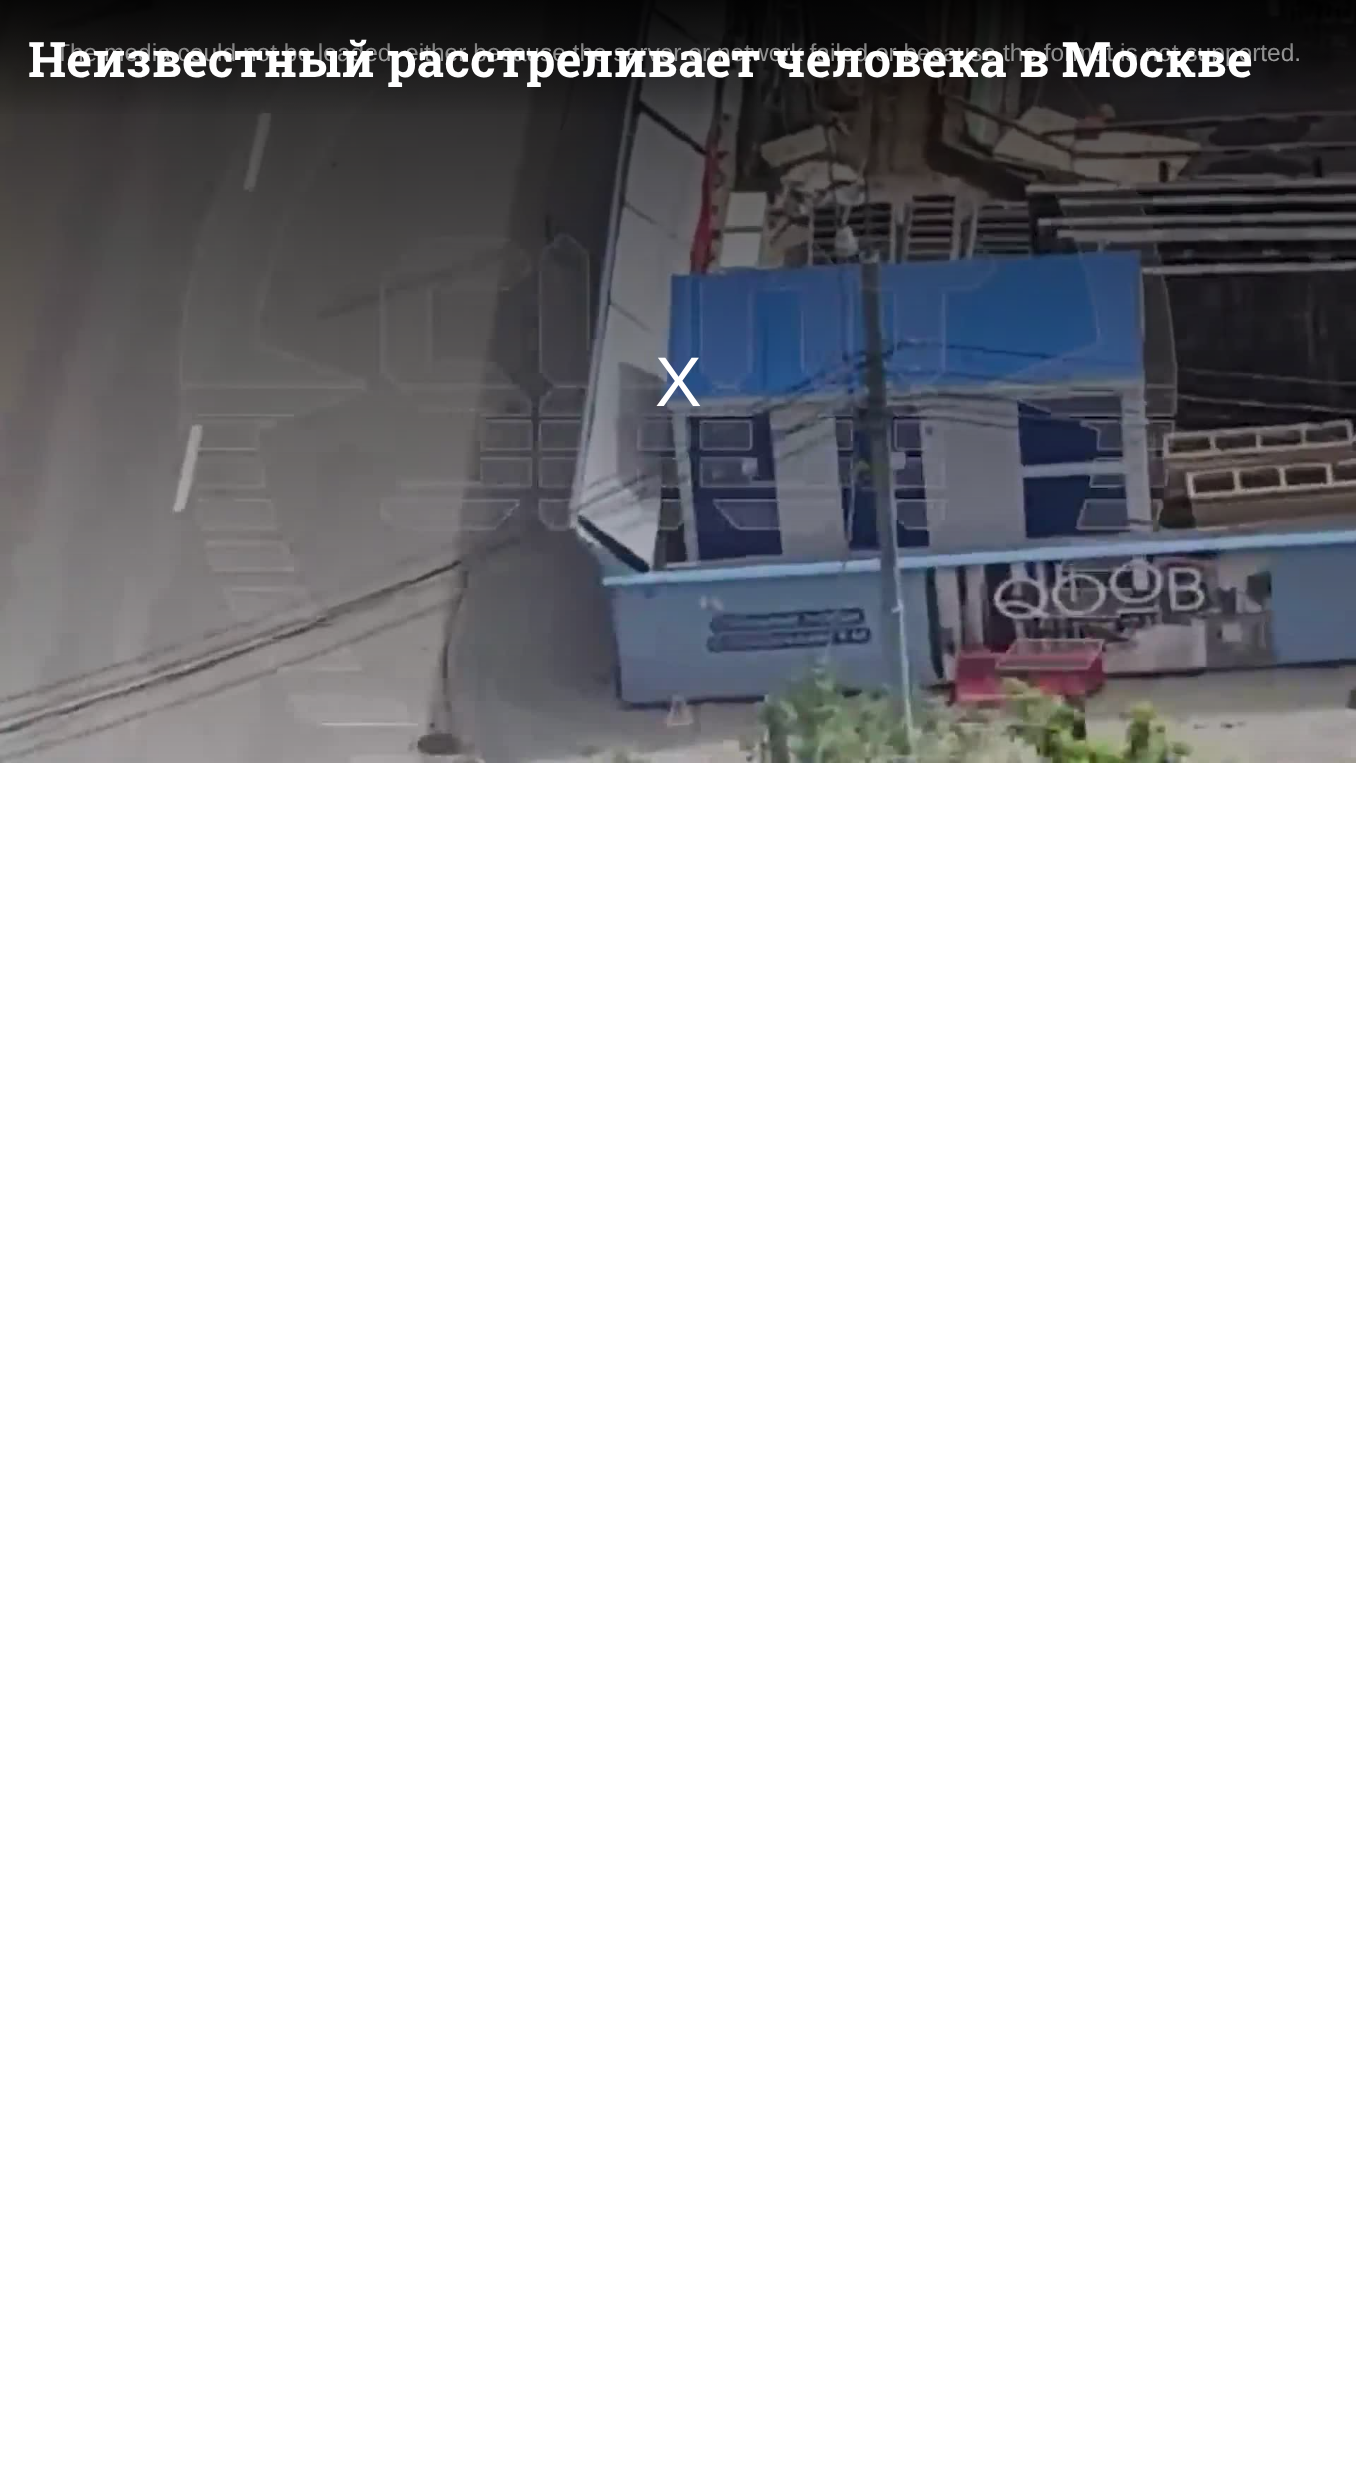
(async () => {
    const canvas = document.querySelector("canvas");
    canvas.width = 1356;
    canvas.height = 2470;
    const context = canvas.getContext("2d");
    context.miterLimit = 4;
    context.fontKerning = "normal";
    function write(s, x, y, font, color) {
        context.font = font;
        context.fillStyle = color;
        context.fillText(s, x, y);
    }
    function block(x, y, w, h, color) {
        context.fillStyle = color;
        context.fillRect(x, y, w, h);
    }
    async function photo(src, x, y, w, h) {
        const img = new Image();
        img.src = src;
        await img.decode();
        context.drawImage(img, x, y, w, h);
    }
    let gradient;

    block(0, 0, 1356, 2470, "rgb(255, 255, 255)");
    await photo("media/1.png", 0, 0, 1356, 763);
    write("The media could not be loaded, either because the server or network failed or because the format is not supported.", 55, 61, "24.5px Liberation Sans", "rgb(255, 255, 255)");
    gradient = context.createLinearGradient(678, 119, 678, 0);
    gradient.addColorStop(0, "rgba(0, 0, 0, 0)");
    gradient.addColorStop(1, "rgba(0, 0, 0, 0.8)");
    context.fillStyle = gradient;
    context.fillRect(0, 0, 1356, 114);
    write("Неизвестный расстреливает человека в Москве", 28, 77, "bold 49px Roboto Slab", "rgb(255, 255, 255)");
    write("X", 655, 406, "70px Liberation Sans", "rgb(255, 255, 255)");
})();
